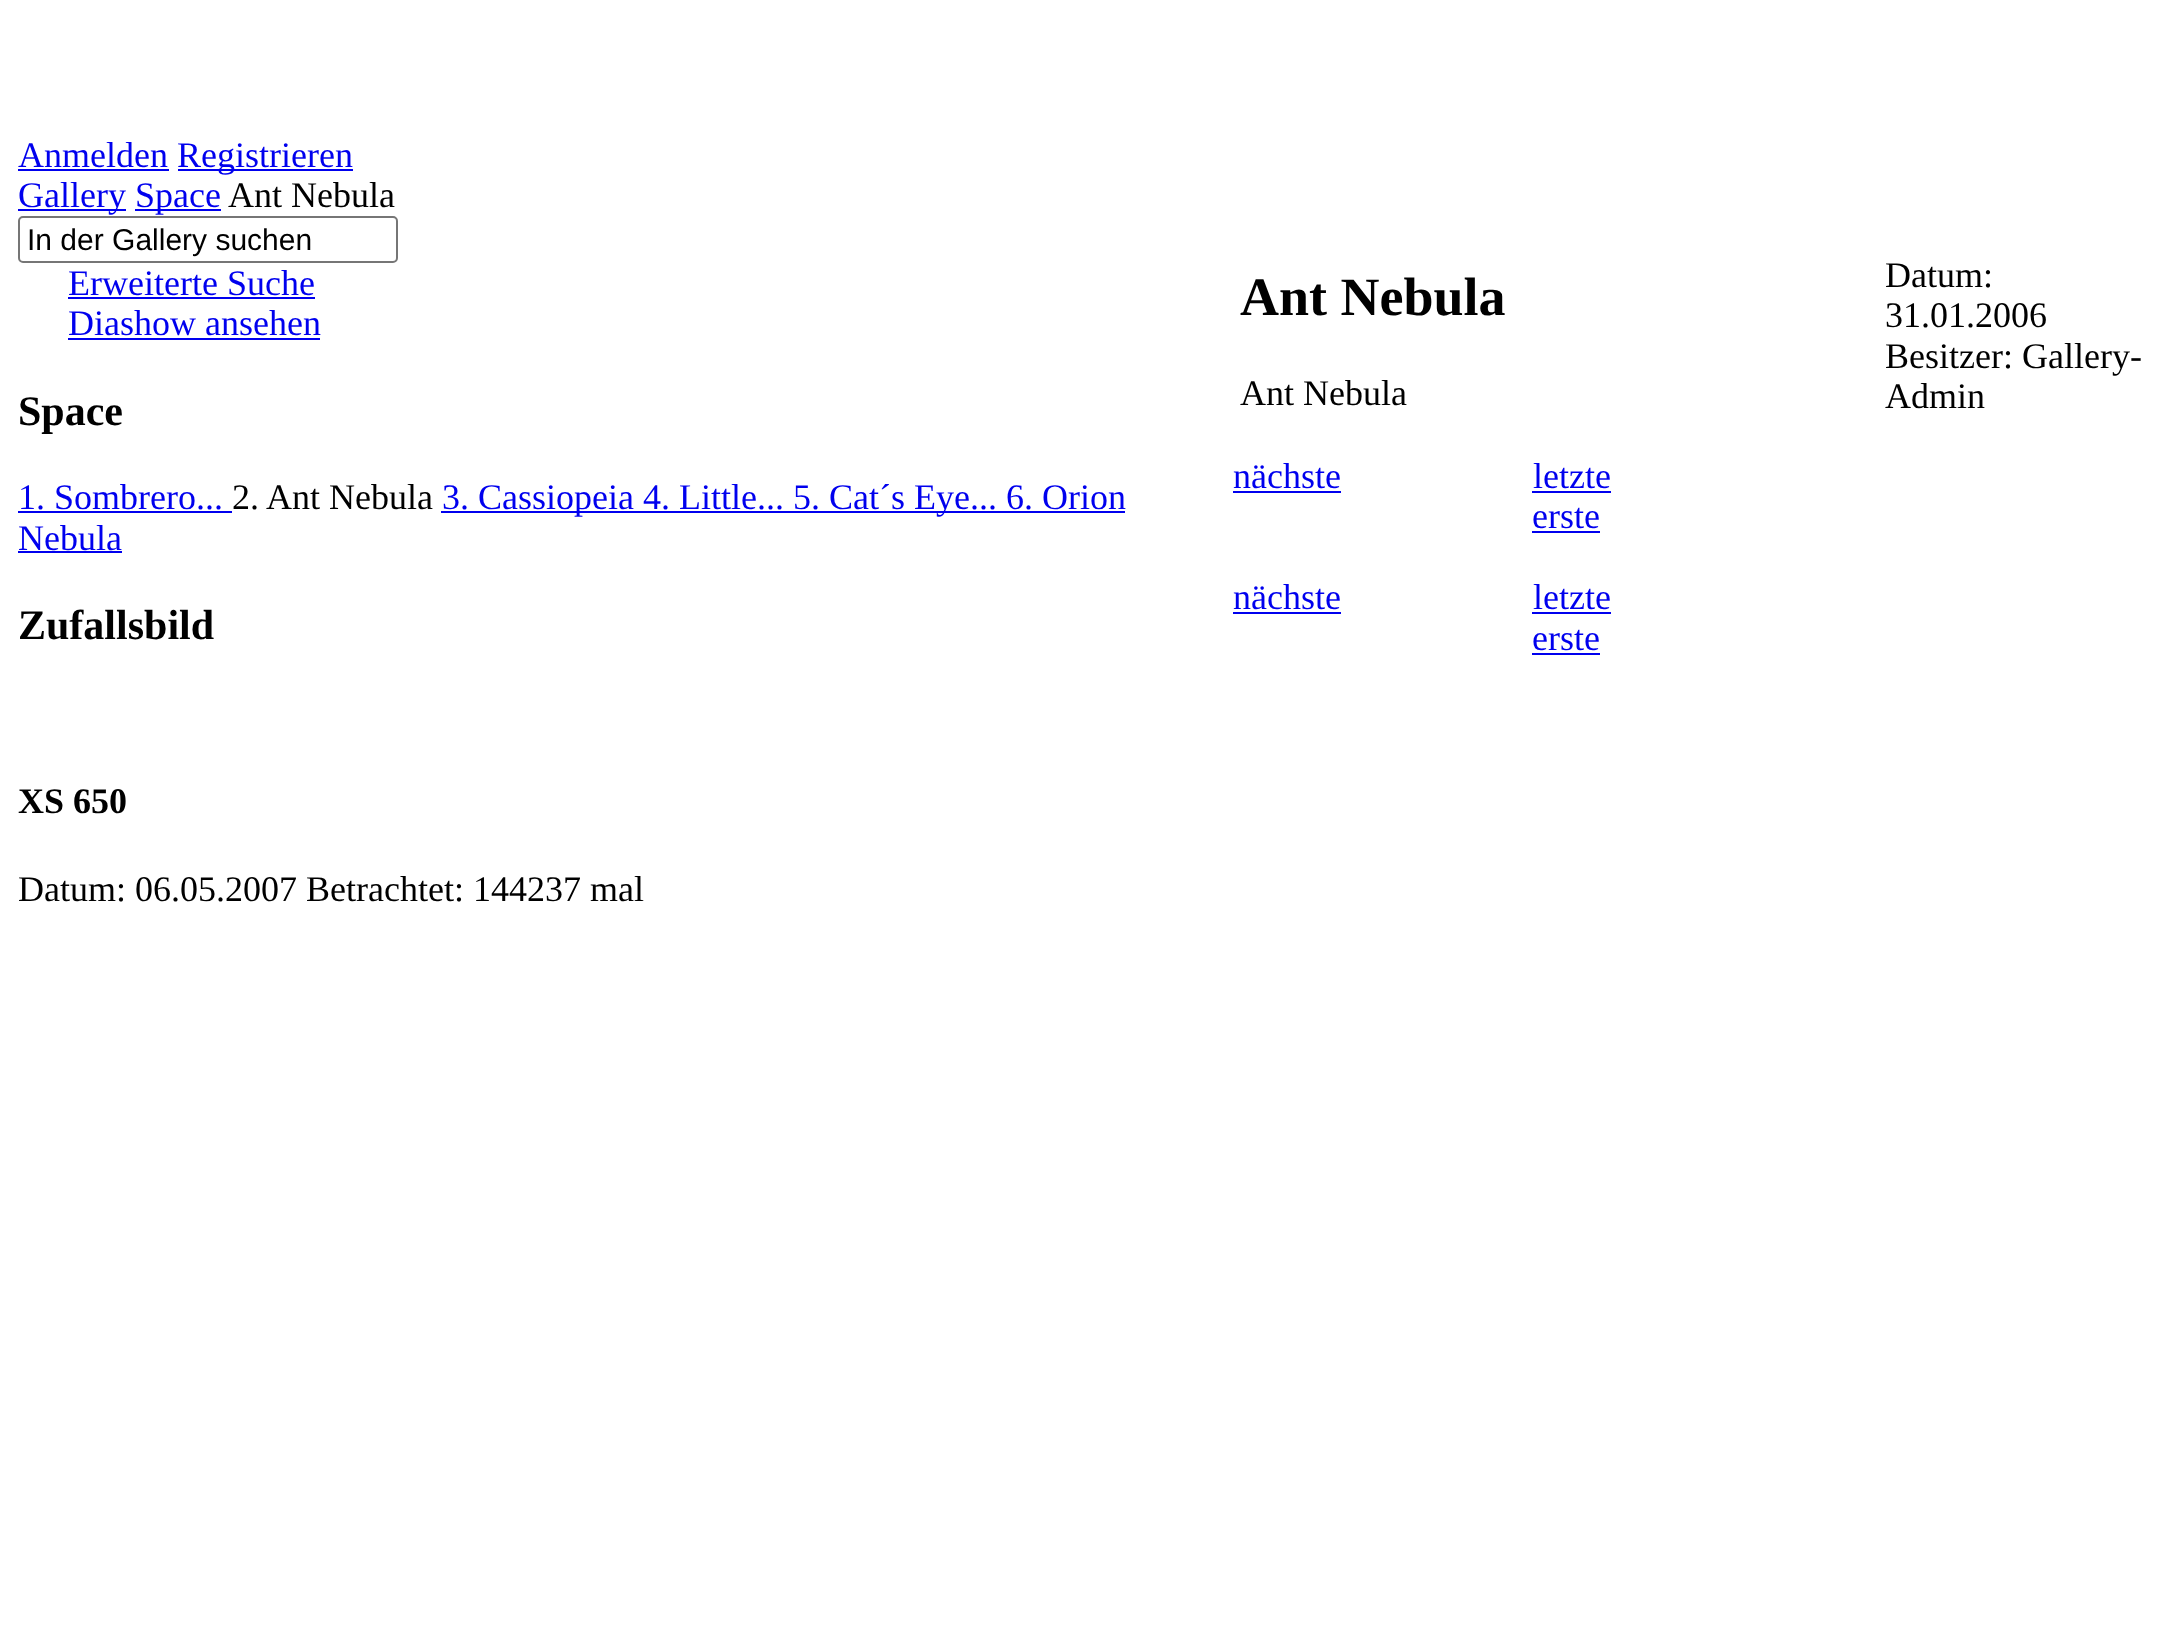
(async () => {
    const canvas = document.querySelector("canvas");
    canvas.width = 2179;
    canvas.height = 1636;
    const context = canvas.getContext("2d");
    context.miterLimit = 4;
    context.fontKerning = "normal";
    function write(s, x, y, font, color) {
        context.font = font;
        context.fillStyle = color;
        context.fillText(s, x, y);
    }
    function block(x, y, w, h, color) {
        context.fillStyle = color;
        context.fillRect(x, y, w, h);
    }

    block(0, 0, 2179, 1636, "rgb(255, 255, 255)");
    write("Anmelden", 18, 167, "36px Liberation Serif", "rgb(0, 0, 238)");
    block(18, 169, 151, 2, "rgb(0, 0, 238)");
    block(178, 169, 175, 2, "rgb(0, 0, 238)");
    write("Registrieren", 177, 167, "36px Liberation Serif", "rgb(0, 0, 238)");
    block(18, 209, 108, 2, "rgb(0, 0, 238)");
    write("Gallery", 18, 207, "36px Liberation Serif", "rgb(0, 0, 238)");
    block(135, 209, 86, 2, "rgb(0, 0, 238)");
    write("Space", 135, 207, "36px Liberation Serif", "rgb(0, 0, 238)");
    write("Ant Nebula", 228, 207, "36px Liberation Serif", "rgb(0, 0, 0)");
    context.beginPath();
    context.roundRect(19, 217, 378, 45, 4);
    context.strokeStyle = "rgb(118, 118, 118)";
    context.lineWidth = 2;
    context.stroke();
    write("In der Gallery suchen", 27, 250, "30px Liberation Sans", "rgb(0, 0, 0)");
    write("Erweiterte Suche", 68, 295, "36px Liberation Serif", "rgb(0, 0, 238)");
    block(68, 297, 247, 2, "rgb(0, 0, 238)");
    write("Diashow ansehen", 68, 335, "36px Liberation Serif", "rgb(0, 0, 238)");
    block(68, 338, 252, 2, "rgb(0, 0, 238)");
    write("Space", 18, 425, "bold 42px Liberation Serif", "rgb(0, 0, 0)");
    write("1. Sombrero...", 18, 509, "36px Liberation Serif", "rgb(0, 0, 238)");
    block(18, 511, 214, 2, "rgb(0, 0, 238)");
    write("2. Ant Nebula", 232, 509, "36px Liberation Serif", "rgb(0, 0, 0)");
    block(441, 511, 684, 2, "rgb(0, 0, 238)");
    write("3. Cassiopeia 4. Little... 5. Cat´s Eye... 6. Orion", 442, 509, "36px Liberation Serif", "rgb(0, 0, 238)");
    write("Nebula", 18, 550, "36px Liberation Serif", "rgb(0, 0, 238)");
    block(18, 551, 104, 2, "rgb(0, 0, 238)");
    write("Zufallsbild", 18, 639, "bold 42px Liberation Serif", "rgb(0, 0, 0)");
    write("XS 650", 18, 813, "bold 36px Liberation Serif", "rgb(0, 0, 0)");
    write("Datum: 06.05.2007 Betrachtet: 144237 mal", 18, 901, "36px Liberation Serif", "rgb(0, 0, 0)");
    write("Ant Nebula", 1240, 315, "bold 54px Liberation Serif", "rgb(0, 0, 0)");
    write("Ant Nebula", 1240, 405, "36px Liberation Serif", "rgb(0, 0, 0)");
    write("Datum:", 1885, 287, "36px Liberation Serif", "rgb(0, 0, 0)");
    write("31.01.2006", 1885, 327, "36px Liberation Serif", "rgb(0, 0, 0)");
    write("Besitzer: Gallery-", 1885, 368, "36px Liberation Serif", "rgb(0, 0, 0)");
    write("Admin", 1885, 408, "36px Liberation Serif", "rgb(0, 0, 0)");
    write("nächste", 1233, 488, "36px Liberation Serif", "rgb(0, 0, 238)");
    block(1233, 491, 108, 2, "rgb(0, 0, 238)");
    write("letzte", 1533, 488, "36px Liberation Serif", "rgb(0, 0, 238)");
    block(1532, 491, 79, 2, "rgb(0, 0, 238)");
    write("erste", 1532, 528, "36px Liberation Serif", "rgb(0, 0, 238)");
    block(1532, 531, 68, 2, "rgb(0, 0, 238)");
    write("nächste", 1233, 609, "36px Liberation Serif", "rgb(0, 0, 238)");
    block(1233, 612, 108, 2, "rgb(0, 0, 238)");
    write("letzte", 1533, 609, "36px Liberation Serif", "rgb(0, 0, 238)");
    block(1532, 612, 79, 2, "rgb(0, 0, 238)");
    write("erste", 1532, 650, "36px Liberation Serif", "rgb(0, 0, 238)");
    block(1532, 653, 68, 2, "rgb(0, 0, 238)");
})();
